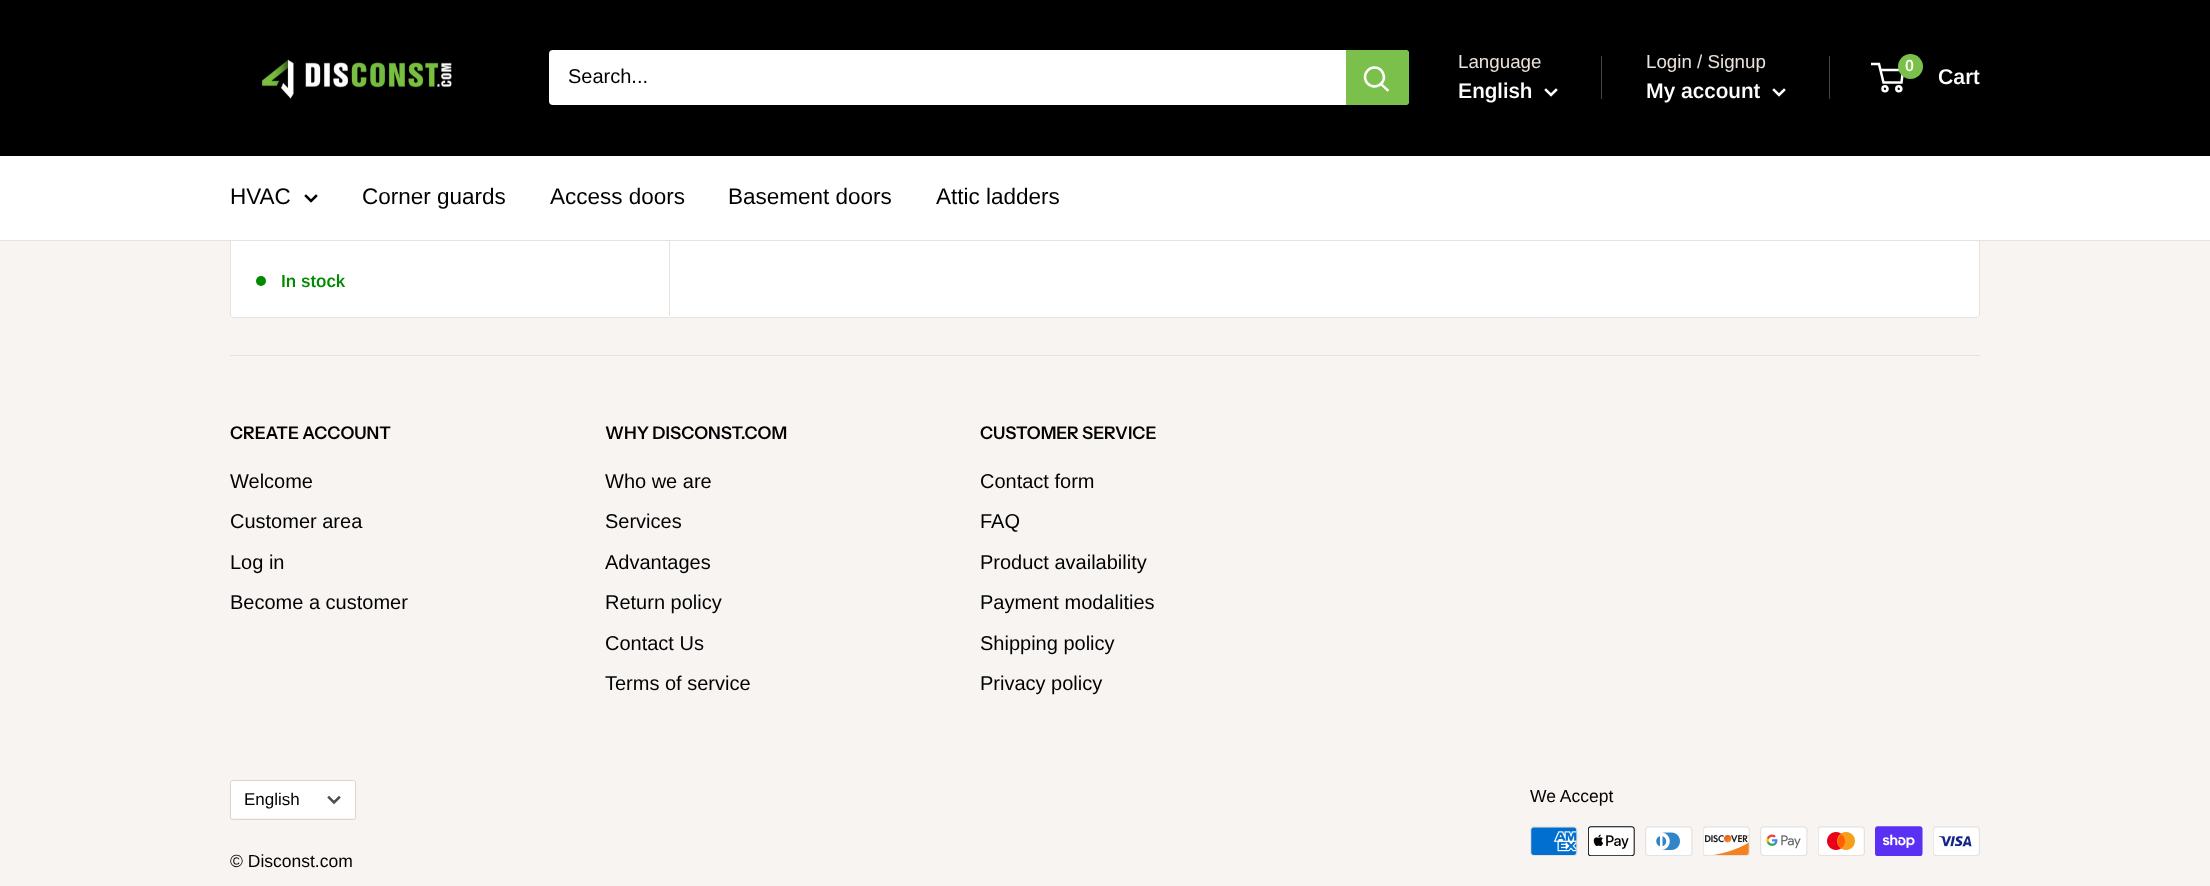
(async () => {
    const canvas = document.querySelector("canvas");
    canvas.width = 2210;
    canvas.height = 886;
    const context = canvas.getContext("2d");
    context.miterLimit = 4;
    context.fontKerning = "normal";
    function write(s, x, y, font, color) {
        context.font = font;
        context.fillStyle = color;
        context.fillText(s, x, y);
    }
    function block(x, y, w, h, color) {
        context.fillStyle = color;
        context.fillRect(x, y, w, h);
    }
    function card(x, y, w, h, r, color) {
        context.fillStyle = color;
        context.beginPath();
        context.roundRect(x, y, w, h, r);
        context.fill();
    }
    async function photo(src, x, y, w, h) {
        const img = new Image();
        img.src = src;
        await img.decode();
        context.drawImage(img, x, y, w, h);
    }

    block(0, 0, 2210, 886, "rgb(247, 244, 242)");
    context.fillStyle = "rgb(255, 255, 255)";
    context.beginPath();
    context.moveTo(230.5, -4.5);
    context.lineTo(1979.5, -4.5);
    context.lineTo(1979.5, 314);
    context.bezierCurveTo(1979.5, 316, 1978, 317.5, 1976, 317.5);
    context.lineTo(234, 317.5);
    context.bezierCurveTo(232, 317.5, 230.5, 316, 230.5, 314);
    context.closePath();
    context.fill();
    context.strokeStyle = "rgb(231, 226, 222)";
    context.stroke();
    block(0, 0, 2210, 156, "rgb(0, 0, 0)");
    await photo("media/1.png", 262, 59, 190, 40);
    card(549, 50, 860, 55, 4, "rgb(255, 255, 255)");
    write("Search...", 568, 83, "20px Arimo", "rgb(0, 0, 0)");
    context.fillStyle = "rgb(123, 192, 74)";
    context.beginPath();
    context.roundRect(1346, 50, 63, 55, [0, 4, 4, 0]);
    context.fill();
    context.beginPath();
    context.moveTo(1387.5, 90);
    context.lineTo(1381, 84);
    context.strokeStyle = "rgb(255, 255, 255)";
    context.lineWidth = 2.5;
    context.lineCap = "square";
    context.stroke();
    context.beginPath();
    context.arc(1374.5, 77, 9.5, 0, Math.PI * 2);
    context.stroke();
    write("Language", 1458, 68, "18.75px Arimo", "rgb(233, 226, 221)");
    write("English", 1458, 98, "600 21.25px Arimo", "rgb(255, 255, 255)");
    context.beginPath();
    context.moveTo(1556, 90);
    context.lineTo(1551, 95);
    context.lineTo(1546, 90);
    context.stroke();
    block(1601, 56, 1, 43, "rgb(70, 68, 66)");
    write("Login / Signup", 1646, 68, "18.75px Arimo", "rgb(233, 226, 221)");
    block(1829, 56, 1, 43, "rgb(70, 68, 66)");
    write("My account", 1646, 98, "600 21.25px Arimo", "rgb(255, 255, 255)");
    context.beginPath();
    context.moveTo(1784, 90);
    context.lineTo(1779, 95);
    context.lineTo(1774, 90);
    context.stroke();
    context.beginPath();
    context.arc(1885, 88.8, 2.5, 0, Math.PI * 2);
    context.stroke();
    context.beginPath();
    context.arc(1898.8, 88.8, 2.5, 0, Math.PI * 2);
    context.stroke();
    context.beginPath();
    context.moveTo(1880.5, 70);
    context.lineTo(1903, 70);
    context.lineTo(1901.5, 82.5);
    context.lineTo(1883.5, 82.5);
    context.lineTo(1879, 64);
    context.lineTo(1871, 64);
    context.lineCap = "butt";
    context.stroke();
    context.fillStyle = "rgb(123, 192, 74)";
    context.beginPath();
    context.arc(1910.5, 66.5, 12.5, 0, Math.PI * 2);
    context.fill();
    write("0", 1905, 71, "600 16px Arimo", "rgb(255, 255, 255)");
    write("Cart", 1938, 84, "600 21.25px Arimo", "rgb(255, 255, 255)");
    block(0, 156, 2210, 84, "rgb(255, 255, 255)");
    block(0, 240, 2210, 1, "rgb(231, 226, 222)");
    write("HVAC", 230, 204, "22.5px Arimo", "rgb(0, 0, 0)");
    context.beginPath();
    context.moveTo(316, 196);
    context.lineTo(311, 201);
    context.lineTo(306, 196);
    context.strokeStyle = "rgb(0, 0, 0)";
    context.lineCap = "square";
    context.stroke();
    write("Corner guards", 362, 204, "22.5px Arimo", "rgb(0, 0, 0)");
    write("Access doors", 550, 204, "22.5px Arimo", "rgb(0, 0, 0)");
    write("Basement doors", 728, 204, "22.5px Arimo", "rgb(0, 0, 0)");
    write("Attic ladders", 936, 204, "22.5px Arimo", "rgb(0, 0, 0)");
    context.fillStyle = "rgb(0, 138, 0)";
    context.beginPath();
    context.arc(261, 281, 5, 0, Math.PI * 2);
    context.fill();
    write("In stock", 281, 287, "600 17.5px Arimo", "rgb(0, 138, 0)");
    block(669, 241, 1, 75, "rgb(231, 226, 222)");
    block(230, 355, 1750, 1, "rgb(231, 226, 222)");
    write("CREATE ACCOUNT", 230, 439, "600 17.5px Instrument Sans", "rgb(0, 0, 0)");
    write("Welcome", 230, 488, "20px Arimo", "rgb(0, 0, 0)");
    write("Customer area", 230, 528, "20px Arimo", "rgb(0, 0, 0)");
    write("Log in", 230, 569, "20px Arimo", "rgb(0, 0, 0)");
    write("Become a customer", 230, 609, "20px Arimo", "rgb(0, 0, 0)");
    write("WHY DISCONST.COM", 605, 439, "600 17.5px Instrument Sans", "rgb(0, 0, 0)");
    write("Who we are", 605, 488, "20px Arimo", "rgb(0, 0, 0)");
    write("Services", 605, 528, "20px Arimo", "rgb(0, 0, 0)");
    write("Advantages", 605, 569, "20px Arimo", "rgb(0, 0, 0)");
    write("Return policy", 605, 609, "20px Arimo", "rgb(0, 0, 0)");
    write("Contact Us", 605, 650, "20px Arimo", "rgb(0, 0, 0)");
    write("Terms of service", 605, 690, "20px Arimo", "rgb(0, 0, 0)");
    write("CUSTOMER SERVICE", 980, 439, "600 17.5px Instrument Sans", "rgb(0, 0, 0)");
    write("Contact form", 980, 488, "20px Arimo", "rgb(0, 0, 0)");
    write("FAQ", 980, 528, "20px Arimo", "rgb(0, 0, 0)");
    write("Product availability", 980, 569, "20px Arimo", "rgb(0, 0, 0)");
    write("Payment modalities", 980, 609, "20px Arimo", "rgb(0, 0, 0)");
    write("Shipping policy", 980, 650, "20px Arimo", "rgb(0, 0, 0)");
    write("Privacy policy", 980, 690, "20px Arimo", "rgb(0, 0, 0)");
    card(230, 780, 126, 40, 2.5, "rgb(255, 255, 255)");
    context.fillStyle = "rgb(248, 246, 245)";
    context.beginPath();
    context.moveTo(231, 816);
    context.bezierCurveTo(231, 817, 231, 818, 232, 819);
    context.lineTo(354, 819);
    context.bezierCurveTo(355, 819, 355, 817, 355, 816);
    context.lineTo(354, 818);
    context.lineTo(232, 818);
    context.closePath();
    context.fill();
    context.beginPath();
    context.roundRect(230.5, 780.5, 125, 39, 2);
    context.strokeStyle = "rgb(220, 213, 207)";
    context.lineWidth = 1;
    context.stroke();
    write("English", 244, 805, "17px Arimo", "rgb(0, 0, 0)");
    context.beginPath();
    context.moveTo(339, 797.5);
    context.lineTo(334, 802.5);
    context.lineTo(329, 797.5);
    context.strokeStyle = "rgb(77, 77, 77)";
    context.lineWidth = 2.5;
    context.stroke();
    write("© Disconst.com", 230, 867, "17.5px Arimo", "rgb(0, 0, 0)");
    write("We Accept", 1530, 802, "17.5px Arimo", "rgb(0, 0, 0)");
    await photo("media/2.png", 1530, 826, 48, 30);
    await photo("media/3.png", 1588, 826, 47, 30);
    await photo("media/4.png", 1645, 826, 48, 30);
    await photo("media/5.png", 1703, 826, 47, 30);
    await photo("media/6.png", 1760, 826, 48, 30);
    await photo("media/7.png", 1818, 826, 47, 30);
    await photo("media/8.png", 1875, 826, 48, 30);
    await photo("media/9.png", 1933, 826, 47, 30);
})();
